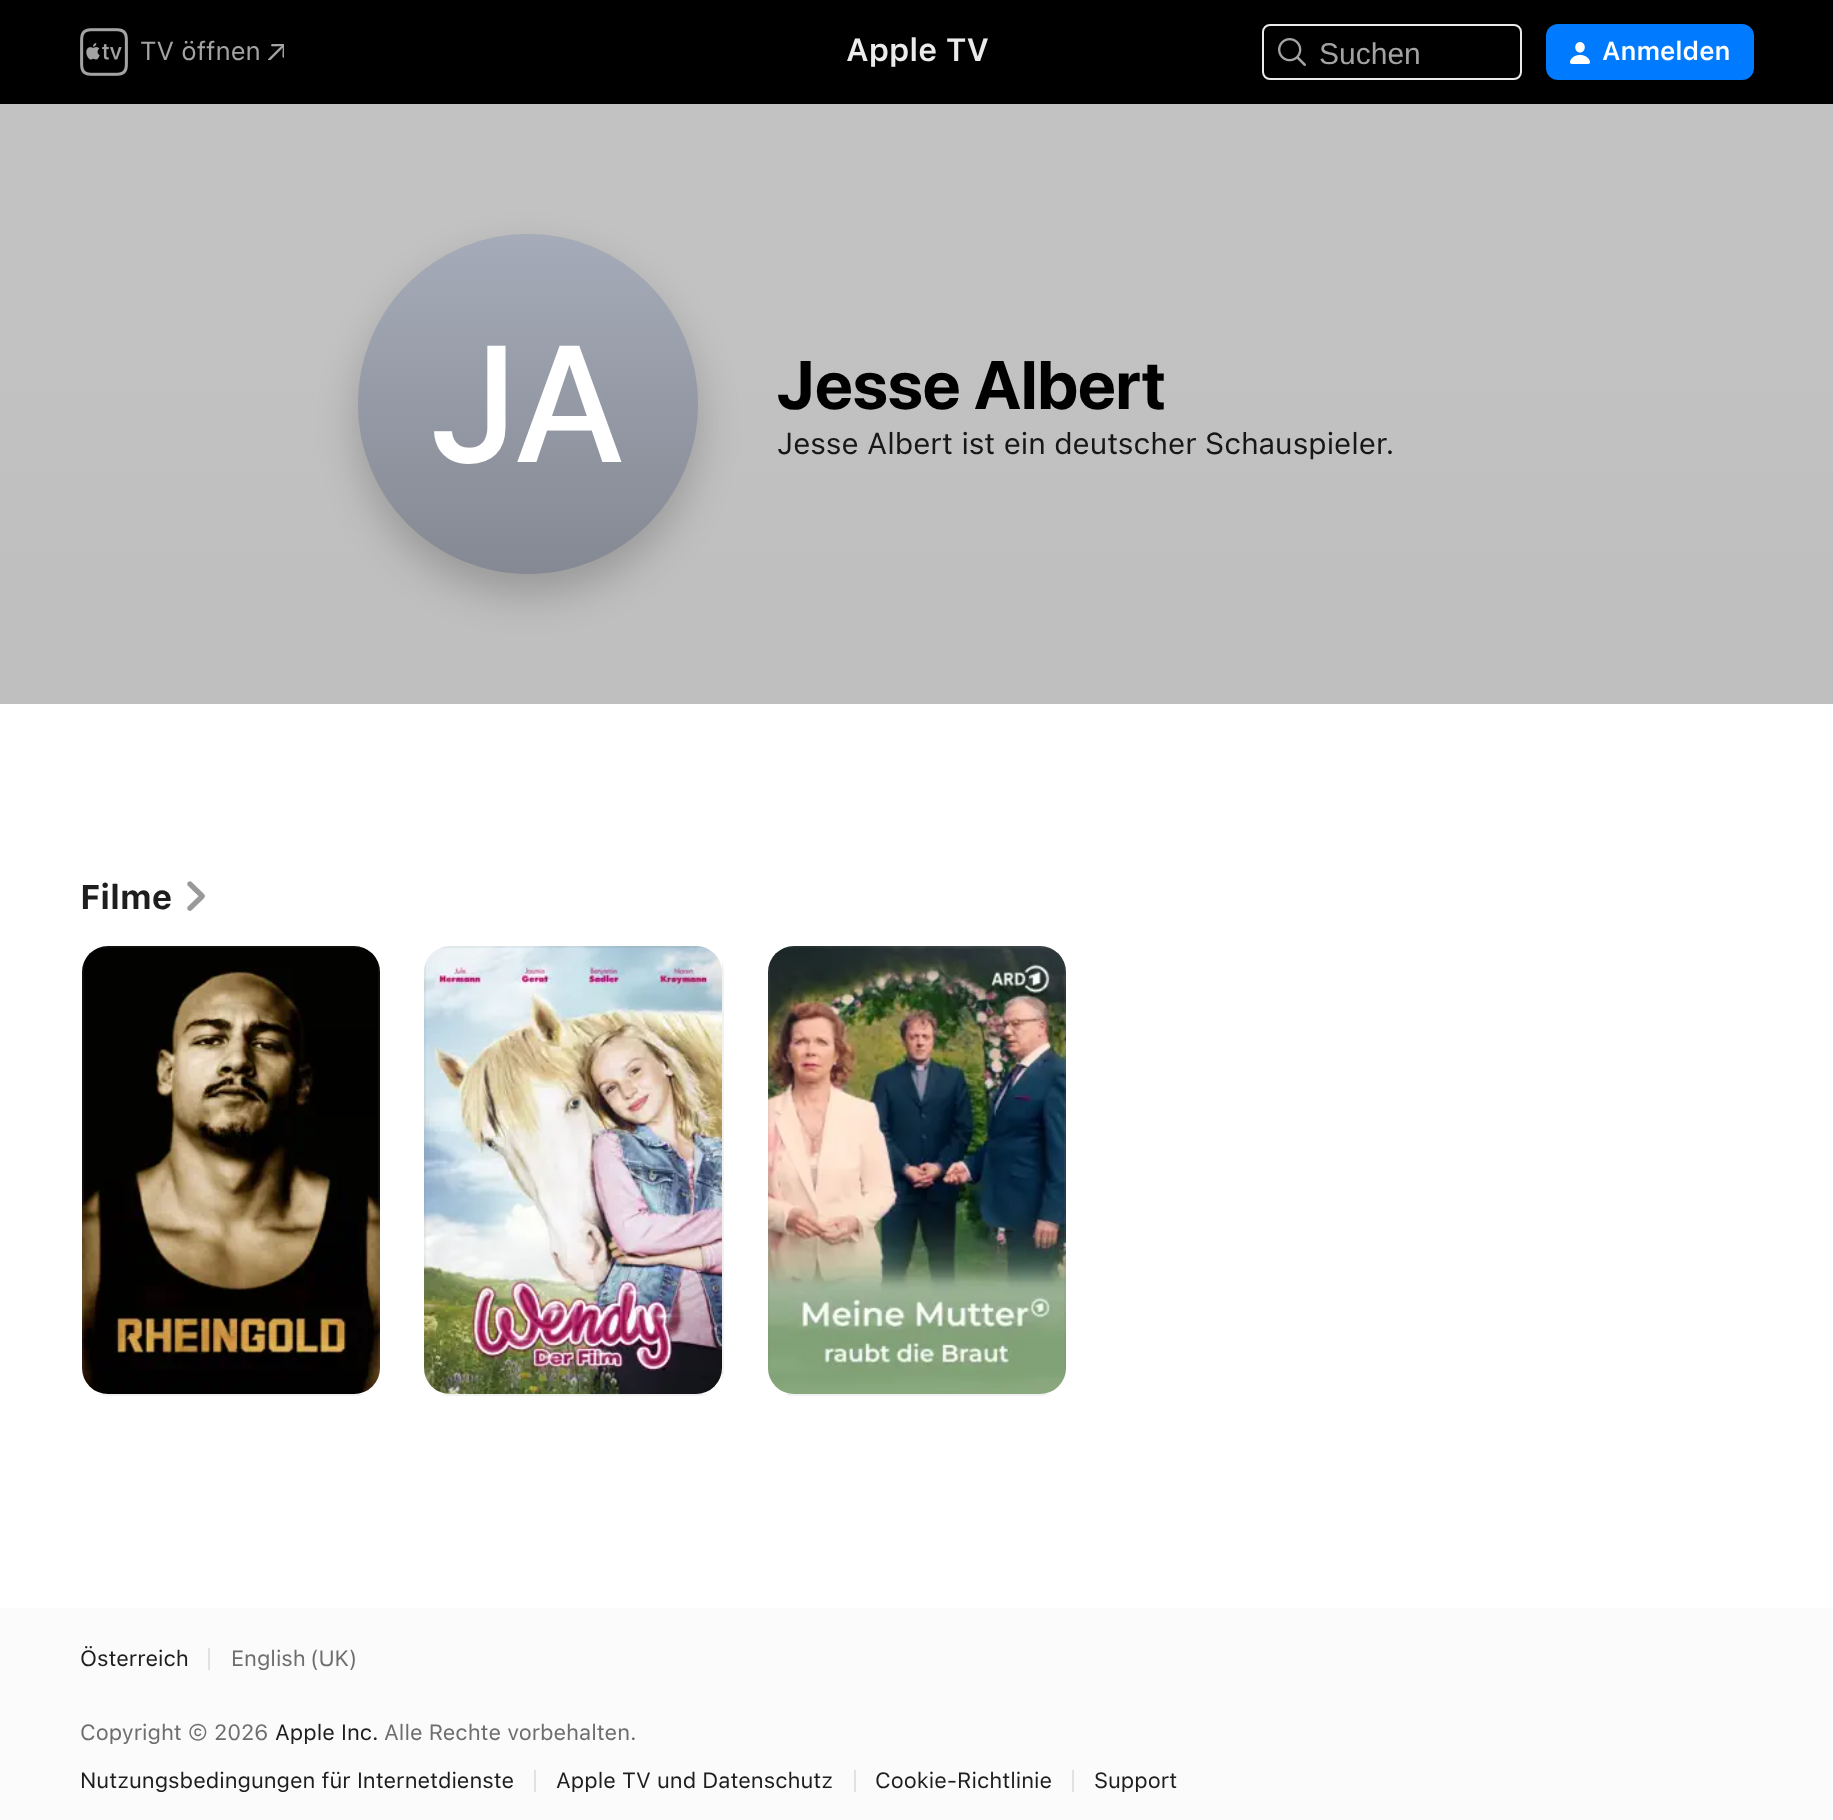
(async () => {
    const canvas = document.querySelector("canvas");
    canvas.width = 1833;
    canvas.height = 1820;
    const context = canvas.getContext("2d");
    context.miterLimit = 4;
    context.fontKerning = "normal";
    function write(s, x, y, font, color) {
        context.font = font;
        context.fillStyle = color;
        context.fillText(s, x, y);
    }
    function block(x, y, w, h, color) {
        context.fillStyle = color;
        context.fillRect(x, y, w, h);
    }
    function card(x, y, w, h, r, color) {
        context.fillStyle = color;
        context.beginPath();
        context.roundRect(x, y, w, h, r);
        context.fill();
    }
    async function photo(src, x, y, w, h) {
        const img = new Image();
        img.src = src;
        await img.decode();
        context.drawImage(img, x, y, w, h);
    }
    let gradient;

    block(0, 0, 1833, 1820, "rgb(255, 255, 255)");
    block(0, 0, 1833, 104, "rgb(0, 0, 0)");
    await photo("media/1.png", 80, 28, 48, 48);
    write("TV öffnen", 140, 60, "26px SF", "rgb(163, 163, 163)");
    await photo("media/2.png", 268, 44, 16, 16);
    write("Apple TV", 846, 61, "600 32px SF", "rgb(235, 235, 235)");
    context.beginPath();
    context.roundRect(1263, 25, 258, 54, 7);
    context.strokeStyle = "rgb(235, 235, 235)";
    context.lineWidth = 2;
    context.stroke();
    await photo("media/3.png", 1278, 38, 28, 28);
    write("Suchen", 1319, 64, "30px Liberation Sans", "rgb(163, 163, 163)");
    card(1546, 24, 208, 56, 12, "rgb(0, 122, 255)");
    await photo("media/4.png", 1570, 42, 20, 22);
    write("Anmelden", 1602, 60, "600 26px SF", "rgb(255, 255, 255)");
    block(0, 104, 1833, 220, "rgb(194, 194, 194)");
    gradient = context.createLinearGradient(917, 324, 917, 704);
    gradient.addColorStop(0, "rgb(194, 194, 194)");
    gradient.addColorStop(0.7, "rgb(191, 191, 191)");
    context.fillStyle = gradient;
    context.fillRect(0, 324, 1833, 380);
    context.fillStyle = "rgba(0, 0, 0, 0.2)";
    context.filter = "blur(20px)";
    context.beginPath();
    context.roundRect(358, 254, 340, 340, 170);
    context.fill();
    context.filter = "none";
    context.beginPath();
    context.arc(528, 404, 169, 0, Math.PI * 2);
    context.strokeStyle = "rgba(0, 0, 0, 0.08)";
    context.stroke();
    gradient = context.createLinearGradient(528, 234, 528, 574);
    gradient.addColorStop(0, "rgb(165, 171, 184)");
    gradient.addColorStop(1, "rgb(132, 137, 147)");
    context.fillStyle = gradient;
    context.beginPath();
    context.arc(528, 404, 170, 0, Math.PI * 2);
    context.fill();
    context.letterSpacing = "1px";
    write("J‌A", 431, 462, "500 165px SF", "rgb(255, 255, 255)");
    context.letterSpacing = "0px";
    write("Jesse Albert", 777, 409, "bold 68px 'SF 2'", "rgb(0, 0, 0)");
    write("Jesse Albert ist ein deutscher Schauspieler.", 777, 454, "30px SF", "rgb(23, 23, 23)");
    write("Filme", 80, 909, "bold 34px SF", "rgb(30, 30, 30)");
    await photo("media/5.png", 187, 881, 18, 30);
    await photo("media/6.png", 82, 946, 298, 448);
    context.fillStyle = "rgba(128, 128, 128, 0.1)";
    context.beginPath();
    context.moveTo(82, 972);
    context.lineTo(82, 1370);
    context.bezierCurveTo(82, 1374, 83, 1377, 84, 1380);
    context.lineTo(84, 962);
    context.bezierCurveTo(83, 965, 82, 968, 82, 972);
    context.closePath();
    context.moveTo(108, 946);
    context.bezierCurveTo(104, 946, 101, 947, 98, 948);
    context.lineTo(364, 948);
    context.bezierCurveTo(361, 947, 358, 946, 354, 946);
    context.closePath();
    context.moveTo(380, 972);
    context.bezierCurveTo(380, 968, 379, 965, 378, 962);
    context.lineTo(378, 1380);
    context.bezierCurveTo(379, 1377, 380, 1374, 380, 1370);
    context.closePath();
    context.moveTo(354, 1396);
    context.bezierCurveTo(358, 1396, 361, 1395, 364, 1394);
    context.lineTo(98, 1394);
    context.bezierCurveTo(101, 1395, 104, 1396, 108, 1396);
    context.closePath();
    context.fill("evenodd");
    await photo("media/7.png", 424, 946, 298, 448);
    context.beginPath();
    context.moveTo(424, 972);
    context.lineTo(424, 1370);
    context.bezierCurveTo(424, 1374, 425, 1377, 426, 1380);
    context.lineTo(426, 962);
    context.bezierCurveTo(425, 965, 424, 968, 424, 972);
    context.closePath();
    context.moveTo(450, 946);
    context.bezierCurveTo(446, 946, 443, 947, 440, 948);
    context.lineTo(708, 948);
    context.bezierCurveTo(705, 947, 702, 946, 698, 946);
    context.closePath();
    context.moveTo(724, 972);
    context.bezierCurveTo(724, 968, 723, 965, 722, 962);
    context.lineTo(722, 1380);
    context.bezierCurveTo(723, 1377, 724, 1374, 724, 1370);
    context.closePath();
    context.moveTo(698, 1396);
    context.bezierCurveTo(702, 1396, 705, 1395, 708, 1394);
    context.lineTo(440, 1394);
    context.bezierCurveTo(443, 1395, 446, 1396, 450, 1396);
    context.closePath();
    context.fill("evenodd");
    await photo("media/8.png", 768, 946, 298, 448);
    context.beginPath();
    context.moveTo(768, 972);
    context.lineTo(768, 1370);
    context.bezierCurveTo(768, 1374, 769, 1377, 770, 1380);
    context.lineTo(770, 962);
    context.bezierCurveTo(769, 965, 768, 968, 768, 972);
    context.closePath();
    context.moveTo(794, 946);
    context.bezierCurveTo(790, 946, 787, 947, 784, 948);
    context.lineTo(1050, 948);
    context.bezierCurveTo(1047, 947, 1044, 946, 1040, 946);
    context.closePath();
    context.moveTo(1066, 972);
    context.bezierCurveTo(1066, 968, 1065, 965, 1064, 962);
    context.lineTo(1064, 1380);
    context.bezierCurveTo(1065, 1377, 1066, 1374, 1066, 1370);
    context.closePath();
    context.moveTo(1040, 1396);
    context.bezierCurveTo(1044, 1396, 1047, 1395, 1050, 1394);
    context.lineTo(784, 1394);
    context.bezierCurveTo(787, 1395, 790, 1396, 794, 1396);
    context.closePath();
    context.fill("evenodd");
    block(0, 1608, 1833, 212, "rgb(251, 251, 251)");
    write("Österreich", 80, 1666, "22px SF", "rgb(30, 30, 30)");
    block(208, 1648, 2, 22, "rgb(226, 226, 226)");
    context.wordSpacing = "-2px";
    write("English (UK)", 231, 1666, "22px SF", "rgb(110, 110, 110)");
    context.wordSpacing = "0px";
    write("Copyright © 2026", 80, 1740, "22px SF", "rgb(110, 110, 110)");
    write("Apple Inc.", 275, 1740, "22px SF", "rgb(30, 30, 30)");
    write("Alle Rechte vorbehalten.", 384, 1740, "22px SF", "rgb(110, 110, 110)");
    write("Nutzungsbedingungen für Internetdienste", 80, 1788, "22px SF", "rgb(30, 30, 30)");
    block(534, 1770, 2, 22, "rgb(226, 226, 226)");
    write("Apple TV und Datenschutz", 556, 1788, "22px SF", "rgb(30, 30, 30)");
    block(854, 1770, 2, 22, "rgb(226, 226, 226)");
    write("Cookie-Richtlinie", 875, 1788, "22px SF", "rgb(30, 30, 30)");
    block(1072, 1770, 2, 22, "rgb(226, 226, 226)");
    write("Support", 1094, 1788, "22px SF", "rgb(30, 30, 30)");
})();
